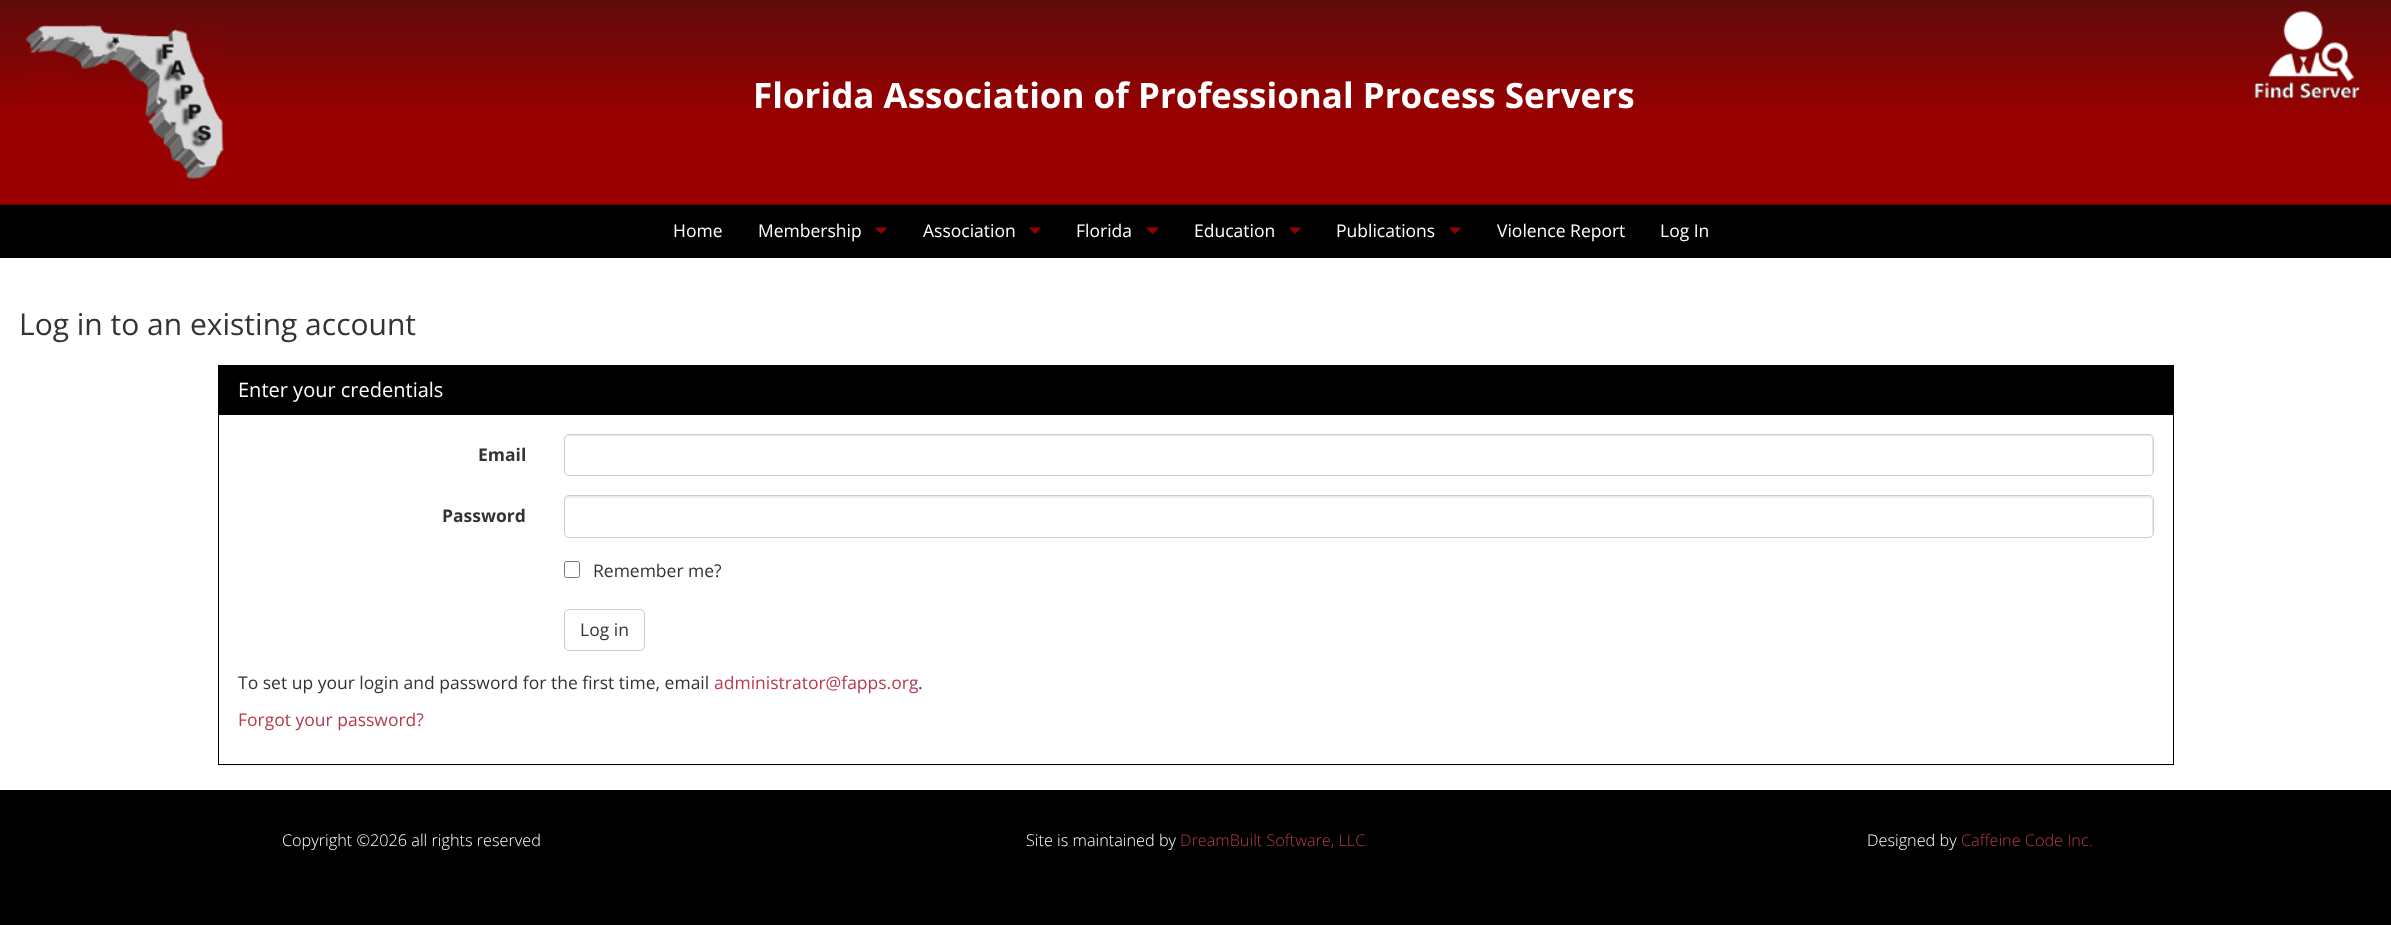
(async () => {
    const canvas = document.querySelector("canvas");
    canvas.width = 2391;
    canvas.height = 925;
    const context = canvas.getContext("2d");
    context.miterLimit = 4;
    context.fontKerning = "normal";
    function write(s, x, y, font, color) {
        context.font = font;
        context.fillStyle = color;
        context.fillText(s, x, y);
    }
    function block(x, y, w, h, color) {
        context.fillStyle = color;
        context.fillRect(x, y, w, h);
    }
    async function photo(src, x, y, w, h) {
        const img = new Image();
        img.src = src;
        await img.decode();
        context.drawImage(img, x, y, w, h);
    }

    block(0, 0, 2391, 925, "rgb(0, 0, 0)");
    await photo("media/1.png", 0, 0, 2391, 205);
    await photo("media/2.png", 25, 25, 199, 154);
    write("Florida Association of Professional Process Servers", 753, 108, "bold 35px Open Sans", "rgb(255, 255, 255)");
    await photo("media/3.png", 2254, 11, 107, 88);
    write("Home", 673, 237, "17.5px Open Sans", "rgb(255, 255, 255)");
    write("Membership", 758, 237, "17.5px Open Sans", "rgb(255, 255, 255)");
    context.fillStyle = "rgb(153, 0, 0)";
    context.beginPath();
    context.moveTo(875, 227.5);
    context.lineTo(887.5, 227.5);
    context.lineTo(881, 234);
    context.closePath();
    context.fill();
    write("Association", 923, 237, "17.5px Open Sans", "rgb(255, 255, 255)");
    context.fillStyle = "rgb(153, 0, 0)";
    context.beginPath();
    context.moveTo(1029, 227.5);
    context.lineTo(1041, 227.5);
    context.lineTo(1035, 234);
    context.closePath();
    context.fill();
    write("Florida", 1076, 237, "17.5px Open Sans", "rgb(255, 255, 255)");
    context.fillStyle = "rgb(153, 0, 0)";
    context.beginPath();
    context.moveTo(1146, 227.5);
    context.lineTo(1159, 227.5);
    context.lineTo(1152.5, 234);
    context.closePath();
    context.fill();
    write("Education", 1194, 237, "17.5px Open Sans", "rgb(255, 255, 255)");
    context.fillStyle = "rgb(153, 0, 0)";
    context.beginPath();
    context.moveTo(1289, 227.5);
    context.lineTo(1301, 227.5);
    context.lineTo(1295, 234);
    context.closePath();
    context.fill();
    write("Publications", 1336, 237, "17.5px Open Sans", "rgb(255, 255, 255)");
    context.fillStyle = "rgb(153, 0, 0)";
    context.beginPath();
    context.moveTo(1449, 227.5);
    context.lineTo(1461, 227.5);
    context.lineTo(1455, 234);
    context.closePath();
    context.fill();
    write("Violence Report", 1497, 237, "17.5px Open Sans", "rgb(255, 255, 255)");
    write("Log In", 1660, 237, "17.5px Open Sans", "rgb(255, 255, 255)");
    block(0, 258, 2391, 532, "rgb(255, 255, 255)");
    write("Log in to an existing account", 19, 335, "30px Open Sans", "rgb(51, 51, 51)");
    context.fillStyle = "rgba(0, 0, 0, 0.05)";
    context.filter = "blur(0.5px)";
    context.beginPath();
    context.rect(218, 366, 1956, 400);
    context.fill();
    context.filter = "none";
    block(219, 415, 1954, 349, "rgb(255, 255, 255)");
    context.strokeStyle = "rgb(0, 0, 0)";
    context.strokeRect(218.5, 365.5, 1955, 399);
    block(219, 366, 1954, 49, "rgb(0, 0, 0)");
    write("Enter your credentials", 238, 397, "20px Open Sans", "rgb(255, 255, 255)");
    write("Email", 478, 461, "bold 17.5px Open Sans", "rgb(51, 51, 51)");
    context.fillStyle = "rgb(236, 236, 236)";
    context.beginPath();
    context.moveTo(569, 436);
    context.lineTo(2149, 436);
    context.bezierCurveTo(2151, 436, 2152, 438, 2152, 440);
    context.lineTo(2152, 474);
    context.bezierCurveTo(2153, 473, 2153, 472, 2153, 471);
    context.lineTo(2153, 439);
    context.bezierCurveTo(2153, 437, 2151, 435, 2149, 435);
    context.lineTo(569, 435);
    context.bezierCurveTo(567, 435, 565, 437, 565, 439);
    context.lineTo(565, 440);
    context.bezierCurveTo(565, 438, 567, 436, 569, 436);
    context.closePath();
    context.fill();
    context.beginPath();
    context.roundRect(564.5, 434.5, 1589, 41, 4.5);
    context.strokeStyle = "rgb(204, 204, 204)";
    context.stroke();
    write("Password", 442, 522, "bold 17.5px Open Sans", "rgb(51, 51, 51)");
    context.fillStyle = "rgb(236, 236, 236)";
    context.beginPath();
    context.moveTo(569, 498);
    context.lineTo(2149, 498);
    context.bezierCurveTo(2151, 498, 2152, 499, 2152, 501);
    context.lineTo(2152, 535);
    context.bezierCurveTo(2153, 534, 2153, 533, 2153, 532);
    context.lineTo(2153, 500);
    context.bezierCurveTo(2153, 498, 2151, 496, 2149, 496);
    context.lineTo(569, 496);
    context.bezierCurveTo(567, 496, 565, 498, 565, 500);
    context.lineTo(565, 501);
    context.bezierCurveTo(565, 499, 567, 498, 569, 498);
    context.closePath();
    context.fill();
    context.beginPath();
    context.roundRect(564.5, 495.5, 1589, 42, 4.5);
    context.stroke();
    context.beginPath();
    context.roundRect(564.5, 561.5, 15, 16, 2);
    context.strokeStyle = "rgb(118, 118, 118)";
    context.stroke();
    write("Remember me?", 593, 577, "17.5px Open Sans", "rgb(51, 51, 51)");
    context.beginPath();
    context.roundRect(564.5, 609.5, 80, 41, 4.5);
    context.strokeStyle = "rgb(204, 204, 204)";
    context.stroke();
    write("Log in", 580, 636, "17.5px Open Sans", "rgb(51, 51, 51)");
    write("To set up your login and password for the first time, email", 238, 689, "17.5px Open Sans", "rgb(51, 51, 51)");
    write("administrator@fapps.org", 714, 689, "17.5px Open Sans", "rgb(182, 59, 77)");
    write(".", 918, 689, "17.5px Open Sans", "rgb(51, 51, 51)");
    write("Forgot your password?", 238, 726, "17.5px Open Sans", "rgb(182, 59, 77)");
    write("Copyright ©2026 all rights reserved", 282, 846, "300 16.25px Open Sans", "rgb(255, 255, 255)");
    write("Site is maintained by", 1026, 846, "300 16.25px Open Sans", "rgb(255, 255, 255)");
    write("DreamBuilt Software, LLC", 1180, 846, "300 16.25px Open Sans", "rgb(182, 59, 77)");
    write("Designed by", 1867, 846, "300 16.25px Open Sans", "rgb(255, 255, 255)");
    write("Caffeine Code Inc.", 1961, 846, "300 16.25px Open Sans", "rgb(182, 59, 77)");
})();
